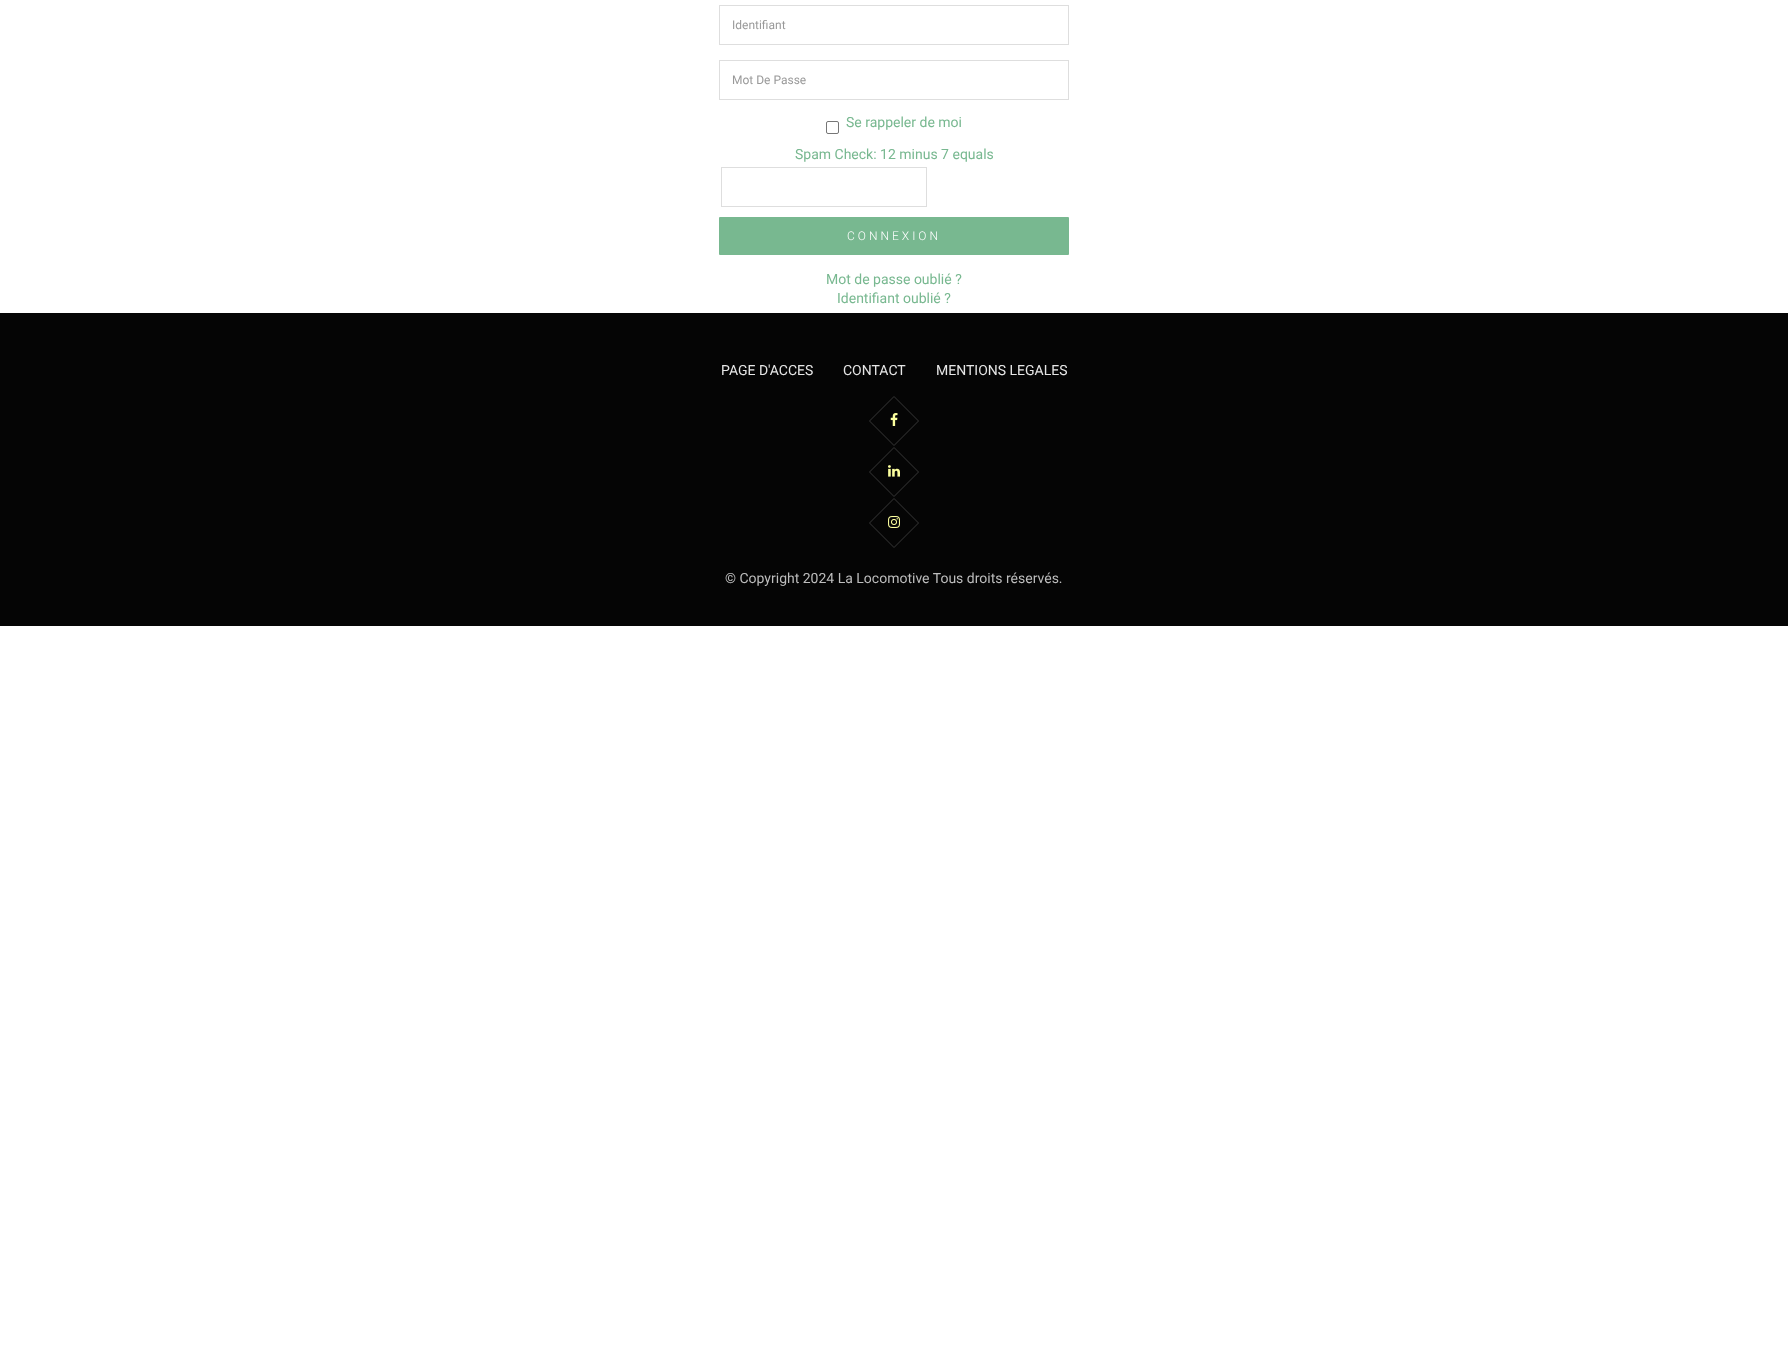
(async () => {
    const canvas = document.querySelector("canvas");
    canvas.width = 1788;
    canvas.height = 1362;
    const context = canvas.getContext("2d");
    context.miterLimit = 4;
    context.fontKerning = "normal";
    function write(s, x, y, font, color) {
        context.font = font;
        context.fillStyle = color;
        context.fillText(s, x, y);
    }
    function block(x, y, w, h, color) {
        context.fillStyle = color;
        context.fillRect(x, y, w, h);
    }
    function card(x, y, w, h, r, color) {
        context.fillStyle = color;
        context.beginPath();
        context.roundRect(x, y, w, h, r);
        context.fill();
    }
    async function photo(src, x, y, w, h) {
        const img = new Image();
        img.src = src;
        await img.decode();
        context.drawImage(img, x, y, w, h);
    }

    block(0, 0, 1788, 1362, "rgb(255, 255, 255)");
    context.strokeStyle = "rgb(222, 222, 222)";
    context.strokeRect(719.5, 5.5, 349, 39);
    write("Identifiant", 732, 29, "12px Roboto", "rgb(153, 153, 153)");
    context.strokeRect(719.5, 60.5, 349, 39);
    write("Mot De Passe", 732, 84, "12px Roboto", "rgb(153, 153, 153)");
    context.beginPath();
    context.roundRect(826.5, 121.5, 12, 12, 1.5);
    context.strokeStyle = "rgb(118, 118, 118)";
    context.stroke();
    write("Se rappeler de moi", 846, 127, "14px Roboto", "rgb(120, 184, 144)");
    write("Spam Check: 12 minus 7 equals", 795, 159, "14px Roboto", "rgb(120, 184, 144)");
    context.strokeStyle = "rgb(222, 222, 222)";
    context.strokeRect(721.5, 167.5, 205, 39);
    card(719, 217, 350, 38, 1, "rgb(120, 184, 144)");
    context.letterSpacing = "3px";
    write("CONNEXION", 847, 240, "300 12px Roboto", "rgb(255, 255, 255)");
    context.letterSpacing = "0px";
    write("Mot de passe oublié ?", 826, 284, "14px Roboto", "rgb(120, 184, 144)");
    write("Identifiant oublié ?", 837, 303, "14px Roboto", "rgb(120, 184, 144)");
    block(0, 313, 1788, 313, "rgb(5, 5, 5)");
    write("PAGE D'ACCES", 721, 375, "14px Roboto", "rgb(230, 230, 230)");
    write("CONTACT", 843, 375, "14px Roboto", "rgb(230, 230, 230)");
    write("MENTIONS LEGALES", 936, 375, "14px Roboto", "rgb(230, 230, 230)");
    await photo("media/1.png", 890, 413, 8, 13);
    context.beginPath();
    context.moveTo(894, 396.5);
    context.lineTo(918.5, 421);
    context.lineTo(894, 445.5);
    context.lineTo(869.5, 421);
    context.closePath();
    context.strokeStyle = "rgb(55, 55, 55)";
    context.stroke();
    await photo("media/2.png", 888, 465, 12, 12);
    context.beginPath();
    context.moveTo(894, 447.5);
    context.lineTo(918.5, 472);
    context.lineTo(894, 496.5);
    context.lineTo(869.5, 472);
    context.closePath();
    context.stroke();
    await photo("media/3.png", 888, 516, 12, 12);
    context.beginPath();
    context.moveTo(894, 498.5);
    context.lineTo(918.5, 523);
    context.lineTo(894, 547.5);
    context.lineTo(869.5, 523);
    context.closePath();
    context.stroke();
    write("© Copyright 2024 La Locomotive Tous droits réservés.", 725, 583, "14px Roboto", "rgb(189, 189, 189)");
})();
